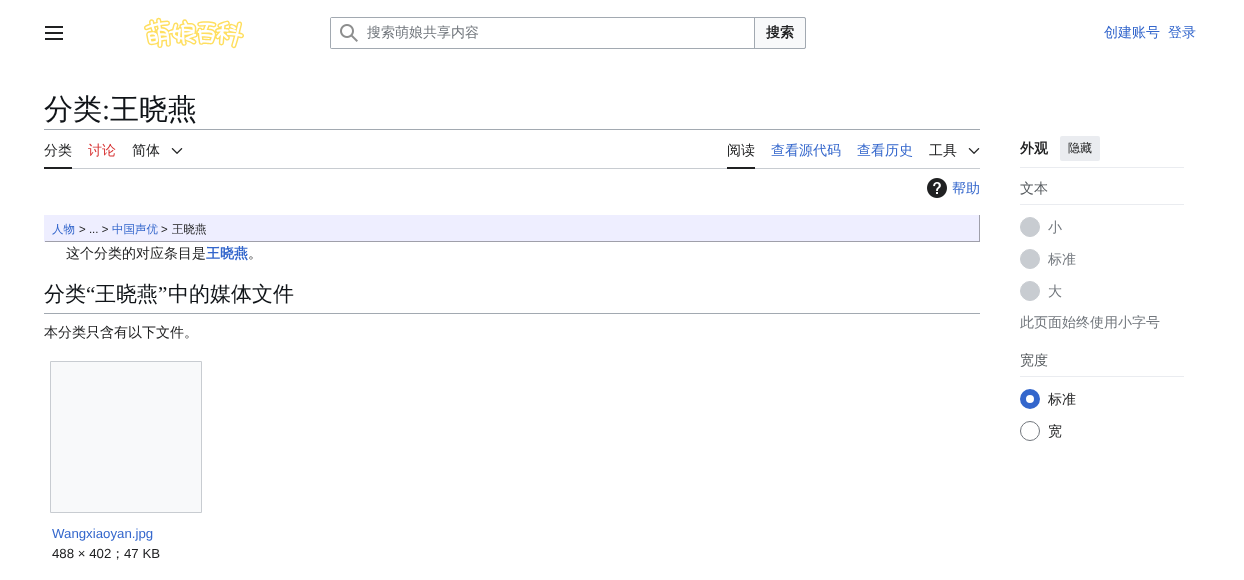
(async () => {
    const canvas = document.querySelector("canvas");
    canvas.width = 1244;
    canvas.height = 580;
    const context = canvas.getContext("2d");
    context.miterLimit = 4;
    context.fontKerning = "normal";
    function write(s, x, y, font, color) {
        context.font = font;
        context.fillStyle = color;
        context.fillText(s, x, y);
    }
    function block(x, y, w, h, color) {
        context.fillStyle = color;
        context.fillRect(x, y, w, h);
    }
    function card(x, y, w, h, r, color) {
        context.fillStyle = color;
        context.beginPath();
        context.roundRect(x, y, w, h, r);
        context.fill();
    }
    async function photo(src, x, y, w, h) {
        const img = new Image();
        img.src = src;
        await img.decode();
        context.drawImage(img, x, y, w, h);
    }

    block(0, 0, 1244, 580, "rgb(255, 255, 255)");
    await photo("media/1.png", 45, 26, 18, 14);
    await photo("media/2.png", 144, 17, 100, 32);
    context.beginPath();
    context.roundRect(330.5, 17.5, 475, 31, 1.5);
    context.strokeStyle = "rgb(162, 169, 177)";
    context.stroke();
    context.fillStyle = "rgb(248, 249, 250)";
    context.beginPath();
    context.roundRect(754.5, 17.5, 51, 31, [0, 1.5, 1.5, 0]);
    context.fill();
    context.stroke();
    context.fillStyle = "rgb(255, 255, 255)";
    context.beginPath();
    context.roundRect(330, 17, 425, 32, [2, 0, 0, 2]);
    context.fill();
    context.fillStyle = "rgb(162, 169, 177)";
    context.beginPath();
    context.moveTo(332, 17);
    context.bezierCurveTo(331, 17, 330, 18, 330, 19);
    context.lineTo(330, 47);
    context.bezierCurveTo(330, 48, 331, 49, 332, 49);
    context.lineTo(755, 49);
    context.lineTo(755, 17);
    context.closePath();
    context.moveTo(331, 18);
    context.lineTo(331, 48);
    context.lineTo(754, 48);
    context.lineTo(754, 18);
    context.closePath();
    context.fill("evenodd");
    await photo("media/3.png", 340, 24, 18, 18);
    write("搜索萌娘共享内容", 367, 37, "500 14px WenQuanYi Zen Hei", "rgb(114, 119, 125)");
    write("搜索", 766, 37, "bold 14px WenQuanYi Zen Hei", "rgb(32, 33, 34)");
    write("创建账号", 1104, 37, "500 14px WenQuanYi Zen Hei", "rgb(51, 102, 204)");
    write("登录", 1168, 37, "500 14px WenQuanYi Zen Hei", "rgb(51, 102, 204)");
    write("分类", 44, 119, "500 29px WenQuanYi Zen Hei", "rgb(16, 20, 24)");
    write(":", 102, 119, "29px Liberation Serif", "rgb(16, 20, 24)");
    write("王晓燕", 110, 119, "500 29px WenQuanYi Zen Hei", "rgb(16, 20, 24)");
    block(44, 129, 936, 1, "rgb(162, 169, 177)");
    block(72, 168, 908, 1, "rgb(200, 204, 209)");
    block(44, 167, 28, 2, "rgb(32, 33, 34)");
    write("分类", 44, 155, "500 14px WenQuanYi Zen Hei", "rgb(32, 33, 34)");
    write("讨论", 88, 155, "500 14px WenQuanYi Zen Hei", "rgb(215, 51, 51)");
    write("简体", 132, 155, "500 14px WenQuanYi Zen Hei", "rgb(32, 33, 34)");
    await photo("media/4.png", 171, 148, 12, 6);
    block(727, 167, 28, 2, "rgb(32, 33, 34)");
    write("阅读", 727, 155, "500 14px WenQuanYi Zen Hei", "rgb(32, 33, 34)");
    write("查看源代码", 771, 155, "500 14px WenQuanYi Zen Hei", "rgb(51, 102, 204)");
    write("查看历史", 857, 155, "500 14px WenQuanYi Zen Hei", "rgb(51, 102, 204)");
    write("工具", 929, 155, "500 14px WenQuanYi Zen Hei", "rgb(32, 33, 34)");
    await photo("media/4.png", 968, 148, 12, 6);
    block(1020, 167, 164, 1, "rgb(234, 236, 240)");
    write("外观", 1020, 153, "bold 14px WenQuanYi Zen Hei", "rgb(32, 33, 34)");
    card(1060, 136, 40, 25, 2, "rgb(234, 236, 240)");
    write("隐藏", 1068, 152, "500 12px WenQuanYi Zen Hei", "rgb(32, 33, 34)");
    block(1020, 204, 164, 1, "rgb(234, 236, 240)");
    write("文本", 1020, 193, "500 14px WenQuanYi Zen Hei", "rgb(84, 89, 93)");
    context.fillStyle = "rgb(200, 204, 209)";
    context.beginPath();
    context.arc(1030, 227, 9.5, 0, Math.PI * 2);
    context.fill();
    context.strokeStyle = "rgb(200, 204, 209)";
    context.stroke();
    write("小", 1048, 232, "500 14px WenQuanYi Zen Hei", "rgb(114, 119, 125)");
    context.fillStyle = "rgb(200, 204, 209)";
    context.beginPath();
    context.arc(1030, 259, 9.5, 0, Math.PI * 2);
    context.fill();
    context.stroke();
    write("标准", 1048, 264, "500 14px WenQuanYi Zen Hei", "rgb(114, 119, 125)");
    context.fillStyle = "rgb(200, 204, 209)";
    context.beginPath();
    context.arc(1030, 291, 9.5, 0, Math.PI * 2);
    context.fill();
    context.stroke();
    write("大", 1048, 296, "500 14px WenQuanYi Zen Hei", "rgb(114, 119, 125)");
    write("此页面始终使用小字号", 1020, 327, "500 14px WenQuanYi Zen Hei", "rgb(114, 119, 125)");
    block(1020, 376, 164, 1, "rgb(234, 236, 240)");
    write("宽度", 1020, 365, "500 14px WenQuanYi Zen Hei", "rgb(84, 89, 93)");
    context.beginPath();
    context.arc(1030, 399, 7, 0, Math.PI * 2);
    context.strokeStyle = "rgb(51, 102, 204)";
    context.lineWidth = 6;
    context.stroke();
    write("标准", 1048, 404, "500 14px WenQuanYi Zen Hei", "rgb(32, 33, 34)");
    context.beginPath();
    context.arc(1030, 431, 9.5, 0, Math.PI * 2);
    context.strokeStyle = "rgb(114, 119, 125)";
    context.lineWidth = 1;
    context.stroke();
    write("宽", 1048, 436, "500 14px WenQuanYi Zen Hei", "rgb(32, 33, 34)");
    await photo("media/5.png", 927, 178, 20, 20);
    write("帮助", 952, 193, "500 14px WenQuanYi Zen Hei", "rgb(51, 102, 204)");
    block(45, 215, 934, 26, "rgb(238, 238, 255)");
    block(979, 215, 1, 27, "rgb(159, 159, 170)");
    block(44, 241, 936, 1, "rgb(159, 159, 170)");
    block(44, 215, 1, 27, "rgb(238, 238, 255)");
    write("人物", 52, 233, "500 11.5px WenQuanYi Zen Hei", "rgb(51, 102, 204)");
    write("> ... >", 79, 233, "11.5px Liberation Sans", "rgb(32, 33, 34)");
    write("中国声优", 112, 233, "500 11.5px WenQuanYi Zen Hei", "rgb(51, 102, 204)");
    write(">", 161, 233, "11.5px Liberation Sans", "rgb(32, 33, 34)");
    write("王晓燕", 172, 233, "500 11.5px WenQuanYi Zen Hei", "rgb(32, 33, 34)");
    write("这个分类的对应条目是", 66, 258, "500 14px WenQuanYi Zen Hei", "rgb(32, 33, 34)");
    write("王晓燕", 206, 258, "bold 14px WenQuanYi Zen Hei", "rgb(51, 102, 204)");
    write("。", 248, 258, "500 14px WenQuanYi Zen Hei", "rgb(32, 33, 34)");
    block(44, 313, 936, 1, "rgb(162, 169, 177)");
    write("分类", 44, 301, "500 21px WenQuanYi Zen Hei", "rgb(16, 20, 24)");
    write("“", 86, 301, "21px Liberation Serif", "rgb(16, 20, 24)");
    write("王晓燕", 95, 301, "500 21px WenQuanYi Zen Hei", "rgb(16, 20, 24)");
    write("”", 158, 301, "21px Liberation Serif", "rgb(16, 20, 24)");
    write("中的媒体文件", 168, 301, "500 21px WenQuanYi Zen Hei", "rgb(16, 20, 24)");
    write("本分类只含有以下文件。", 44, 337, "500 14px WenQuanYi Zen Hei", "rgb(32, 33, 34)");
    context.fillStyle = "rgb(248, 249, 250)";
    context.beginPath();
    context.rect(50.5, 361.5, 151, 151);
    context.fill();
    context.strokeStyle = "rgb(200, 204, 209)";
    context.stroke();
    write("Wangxiaoyan.jpg", 52, 538, "13.25px Liberation Sans", "rgb(51, 102, 204)");
    write("488 × 402", 52, 558, "13.25px Liberation Sans", "rgb(32, 33, 34)");
    write("；", 111, 558, "500 13.25px WenQuanYi Zen Hei", "rgb(32, 33, 34)");
    write("47 KB", 124, 558, "13.25px Liberation Sans", "rgb(32, 33, 34)");
})();
